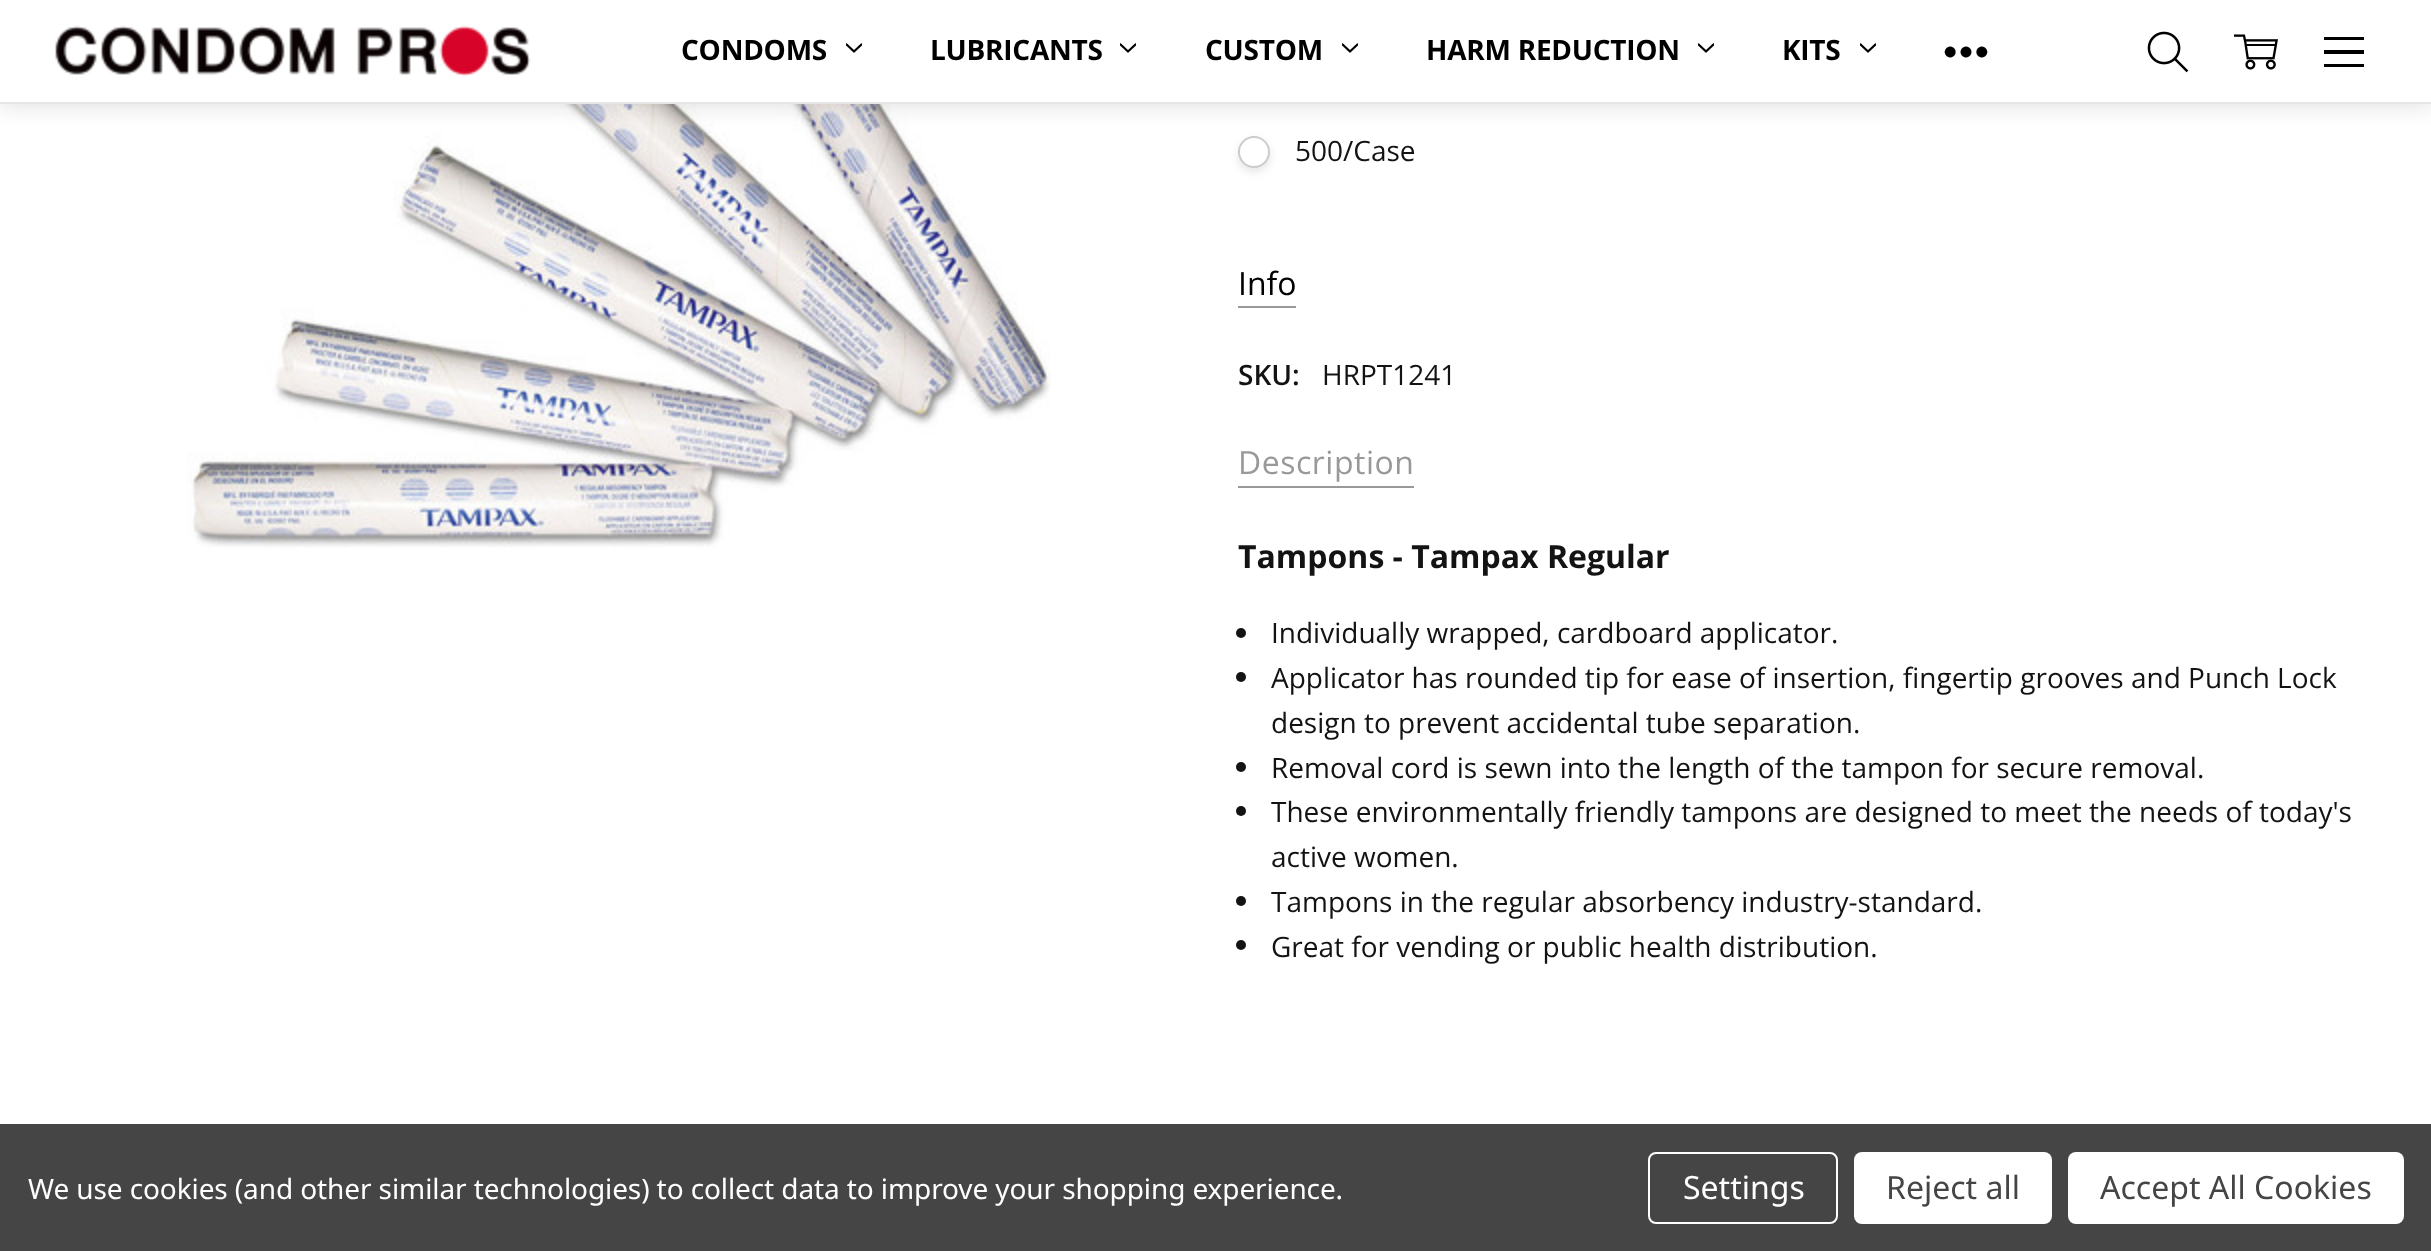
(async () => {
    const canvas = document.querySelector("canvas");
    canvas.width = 2431;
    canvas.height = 1251;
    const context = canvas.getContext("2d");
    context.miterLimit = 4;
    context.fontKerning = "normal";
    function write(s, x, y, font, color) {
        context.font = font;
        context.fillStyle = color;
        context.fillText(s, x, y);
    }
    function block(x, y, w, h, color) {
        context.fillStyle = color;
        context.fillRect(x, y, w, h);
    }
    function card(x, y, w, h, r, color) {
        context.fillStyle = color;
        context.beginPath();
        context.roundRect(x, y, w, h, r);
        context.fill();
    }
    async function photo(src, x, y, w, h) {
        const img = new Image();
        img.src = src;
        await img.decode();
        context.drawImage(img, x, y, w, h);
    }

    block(0, 0, 2431, 1251, "rgb(255, 255, 255)");
    await photo("media/6.png", 186, 104, 865, 444);
    context.fillStyle = "rgba(0, 0, 0, 0.1)";
    context.filter = "blur(4px)";
    context.beginPath();
    context.roundRect(1238, 140, 32, 32, 16);
    context.fill();
    context.filter = "none";
    context.fillStyle = "rgb(255, 255, 255)";
    context.beginPath();
    context.arc(1254, 152, 15, 0, Math.PI * 2);
    context.fill();
    context.strokeStyle = "rgb(204, 204, 204)";
    context.lineWidth = 2;
    context.stroke();
    context.fillStyle = "rgba(0, 0, 0, 0.1)";
    context.filter = "blur(10px)";
    context.beginPath();
    context.rect(0, 4, 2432, 104);
    context.fill();
    context.filter = "none";
    block(0, 0, 2431, 102, "rgb(255, 255, 255)");
    block(0, 102, 2431, 2, "rgb(229, 229, 229)");
    await photo("media/1.png", 55, 25, 476, 52);
    context.letterSpacing = "-0.25px";
    write("CONDOMS", 681, 60, "bold 28px Open Sans", "rgb(0, 0, 0)");
    await photo("media/2.png", 846, 43, 16, 10);
    write("LUBRICANTS", 930, 60, "bold 28px Open Sans", "rgb(0, 0, 0)");
    await photo("media/2.png", 1120, 43, 16, 10);
    write("CUSTOM", 1205, 60, "bold 28px Open Sans", "rgb(0, 0, 0)");
    await photo("media/2.png", 1342, 43, 16, 10);
    write("HARM REDUCTION", 1426, 60, "bold 28px Open Sans", "rgb(0, 0, 0)");
    await photo("media/2.png", 1698, 43, 16, 10);
    write("KITS", 1782, 60, "bold 28px Open Sans", "rgb(0, 0, 0)");
    await photo("media/2.png", 1860, 43, 16, 10);
    await photo("media/3.png", 1944, 46, 44, 12);
    await photo("media/4.png", 2147, 31, 42, 42);
    await photo("media/5.png", 2234, 34, 44, 36);
    block(2324, 37, 40, 3, "rgb(0, 0, 0)");
    block(2324, 50, 40, 4, "rgb(0, 0, 0)");
    block(2324, 64, 40, 3, "rgb(0, 0, 0)");
    context.letterSpacing = "0px";
    write("500/Case", 1295, 161, "28px Open Sans", "rgb(19, 19, 19)");
    block(1238, 306, 58, 2, "rgb(153, 153, 153)");
    write("Info", 1238, 295, "32px Open Sans", "rgb(0, 0, 0)");
    write("SKU:", 1238, 385, "600 28px Open Sans", "rgb(19, 19, 19)");
    write("HRPT1241", 1322, 385, "28px Open Sans", "rgb(19, 19, 19)");
    block(1238, 486, 176, 2, "rgb(153, 153, 153)");
    context.letterSpacing = "0.5px";
    write("Description", 1238, 474, "32px Open Sans", "rgb(153, 153, 153)");
    context.letterSpacing = "0px";
    write("Tampons - Tampax Regular", 1238, 568, "bold 32px Open Sans", "rgb(19, 19, 19)");
    context.beginPath();
    context.arc(1241, 633, 5, 0, Math.PI * 2);
    context.fill();
    write("Individually wrapped, cardboard applicator.", 1271, 643, "28px Open Sans", "rgb(19, 19, 19)");
    context.beginPath();
    context.arc(1241, 677, 5, 0, Math.PI * 2);
    context.fill();
    write("Applicator has rounded tip for ease of insertion, fingertip grooves and Punch Lock", 1271, 688, "28px Open Sans", "rgb(19, 19, 19)");
    write("design to prevent accidental tube separation.", 1271, 733, "28px Open Sans", "rgb(19, 19, 19)");
    context.beginPath();
    context.arc(1241, 767, 5, 0, Math.PI * 2);
    context.fill();
    write("Removal cord is sewn into the length of the tampon for secure removal.", 1271, 778, "28px Open Sans", "rgb(19, 19, 19)");
    context.beginPath();
    context.arc(1241, 811, 5, 0, Math.PI * 2);
    context.fill();
    write("These environmentally friendly tampons are designed to meet the needs of today's", 1271, 822, "28px Open Sans", "rgb(19, 19, 19)");
    write("active women.", 1271, 867, "28px Open Sans", "rgb(19, 19, 19)");
    context.beginPath();
    context.arc(1241, 901, 5, 0, Math.PI * 2);
    context.fill();
    write("Tampons in the regular absorbency industry-standard.", 1271, 912, "28px Open Sans", "rgb(19, 19, 19)");
    context.beginPath();
    context.arc(1241, 945, 5, 0, Math.PI * 2);
    context.fill();
    write("Great for vending or public health distribution.", 1271, 957, "28px Open Sans", "rgb(19, 19, 19)");
    block(0, 1124, 2431, 127, "rgb(69, 69, 69)");
    context.letterSpacing = "-0.1px";
    write("We use cookies (and other similar technologies) to collect data to improve your shopping experience.", 28, 1199, "28px Noto Sans", "rgb(255, 255, 255)");
    context.beginPath();
    context.roundRect(1649, 1153, 188, 70, 7);
    context.strokeStyle = "rgb(255, 255, 255)";
    context.stroke();
    context.letterSpacing = "0px";
    write("Settings", 1683, 1199, "32px Noto Sans", "rgb(255, 255, 255)");
    card(1854, 1152, 198, 72, 8, "rgb(255, 255, 255)");
    write("Reject all", 1886, 1199, "32px Noto Sans", "rgb(69, 69, 69)");
    card(2068, 1152, 336, 72, 8, "rgb(255, 255, 255)");
    write("Accept All Cookies", 2100, 1199, "32px Noto Sans", "rgb(69, 69, 69)");
})();
